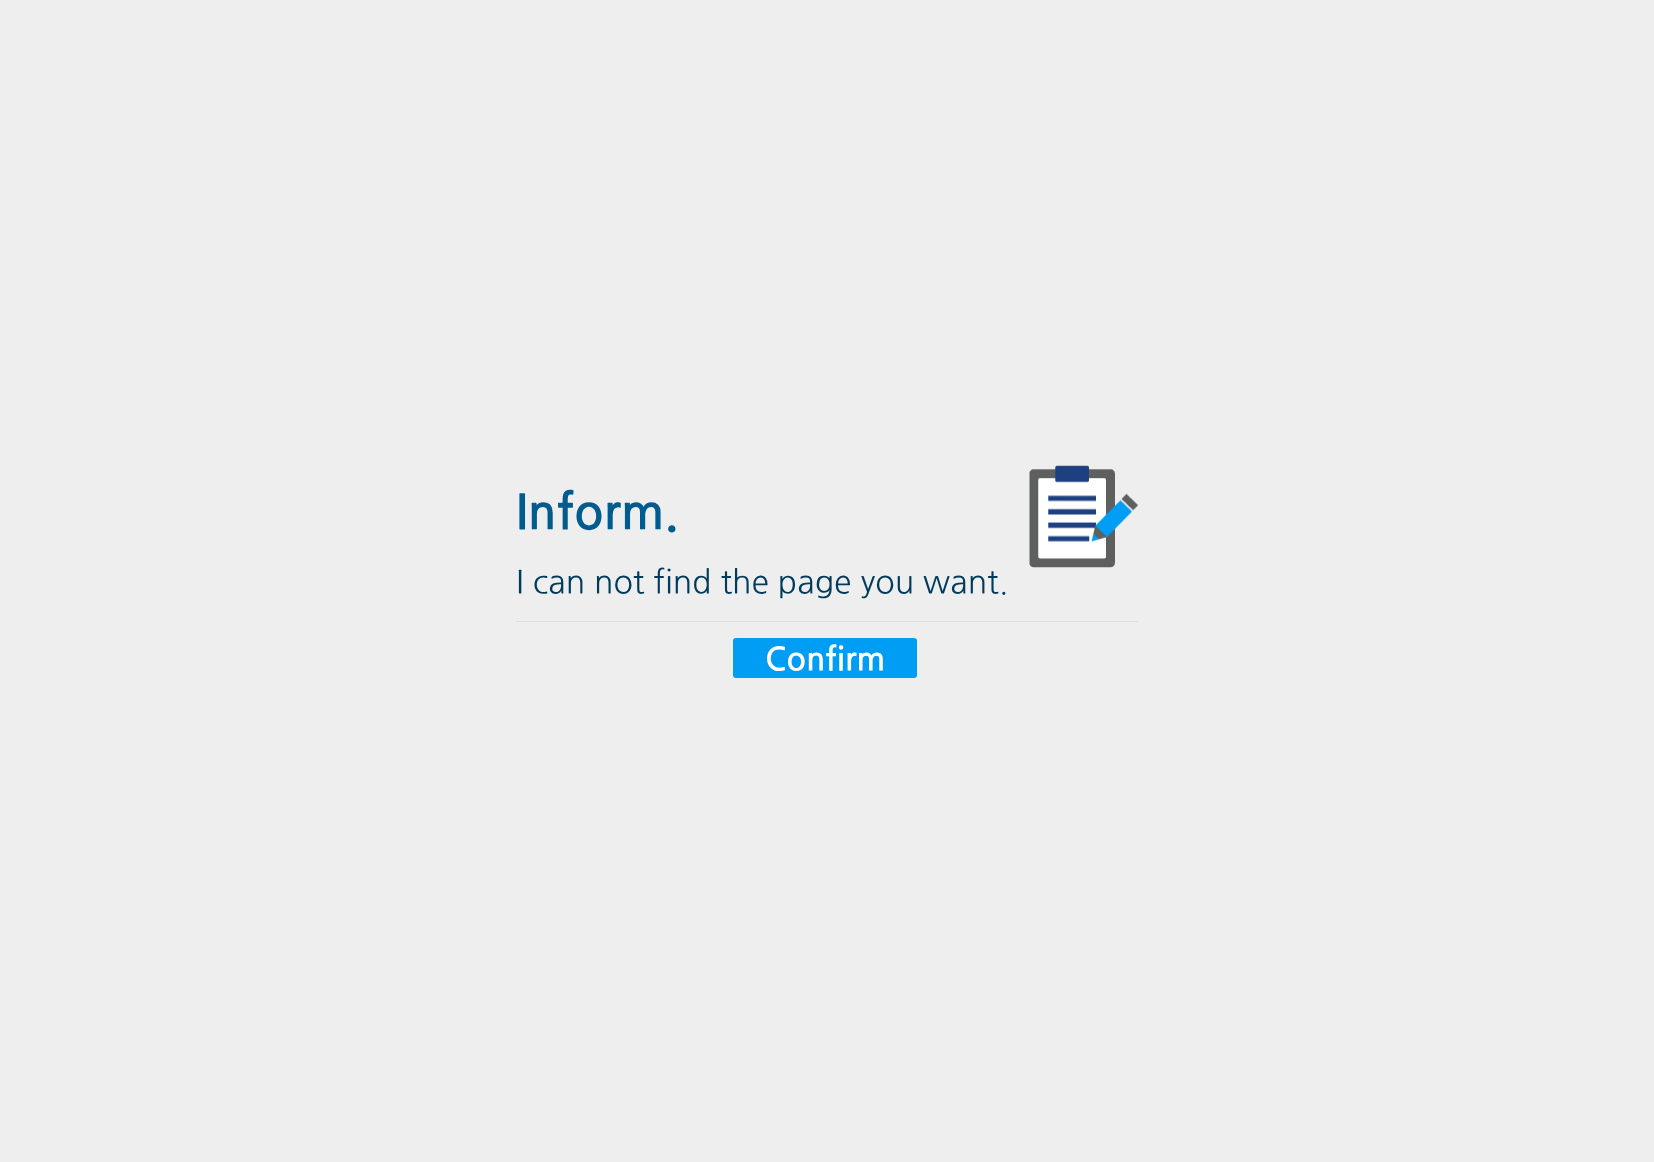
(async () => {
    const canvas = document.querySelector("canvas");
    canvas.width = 1654;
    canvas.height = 1162;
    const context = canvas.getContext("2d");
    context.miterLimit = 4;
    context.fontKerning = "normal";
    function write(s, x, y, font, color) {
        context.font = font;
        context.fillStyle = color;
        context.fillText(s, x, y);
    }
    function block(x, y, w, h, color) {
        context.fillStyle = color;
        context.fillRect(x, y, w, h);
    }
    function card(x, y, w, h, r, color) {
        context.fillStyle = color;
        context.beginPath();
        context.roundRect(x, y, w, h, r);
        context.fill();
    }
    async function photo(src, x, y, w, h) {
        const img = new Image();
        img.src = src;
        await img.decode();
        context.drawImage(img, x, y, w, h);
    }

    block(0, 0, 1654, 1162, "rgb(238, 238, 238)");
    await photo("media/1.png", 1029, 465, 109, 103);
    write("Inform.", 516, 527, "bold 48px NanumGothic", "rgb(0, 92, 143)");
    write("I can not find the page you want.", 516, 592, "32px NanumGothic", "rgb(0, 59, 92)");
    block(516, 621, 622, 1, "rgb(221, 221, 221)");
    card(733, 638, 184, 40, 3, "rgb(0, 157, 245)");
    write("Confirm", 765, 669, "bold 32px NanumGothic", "rgb(255, 255, 255)");
})();
